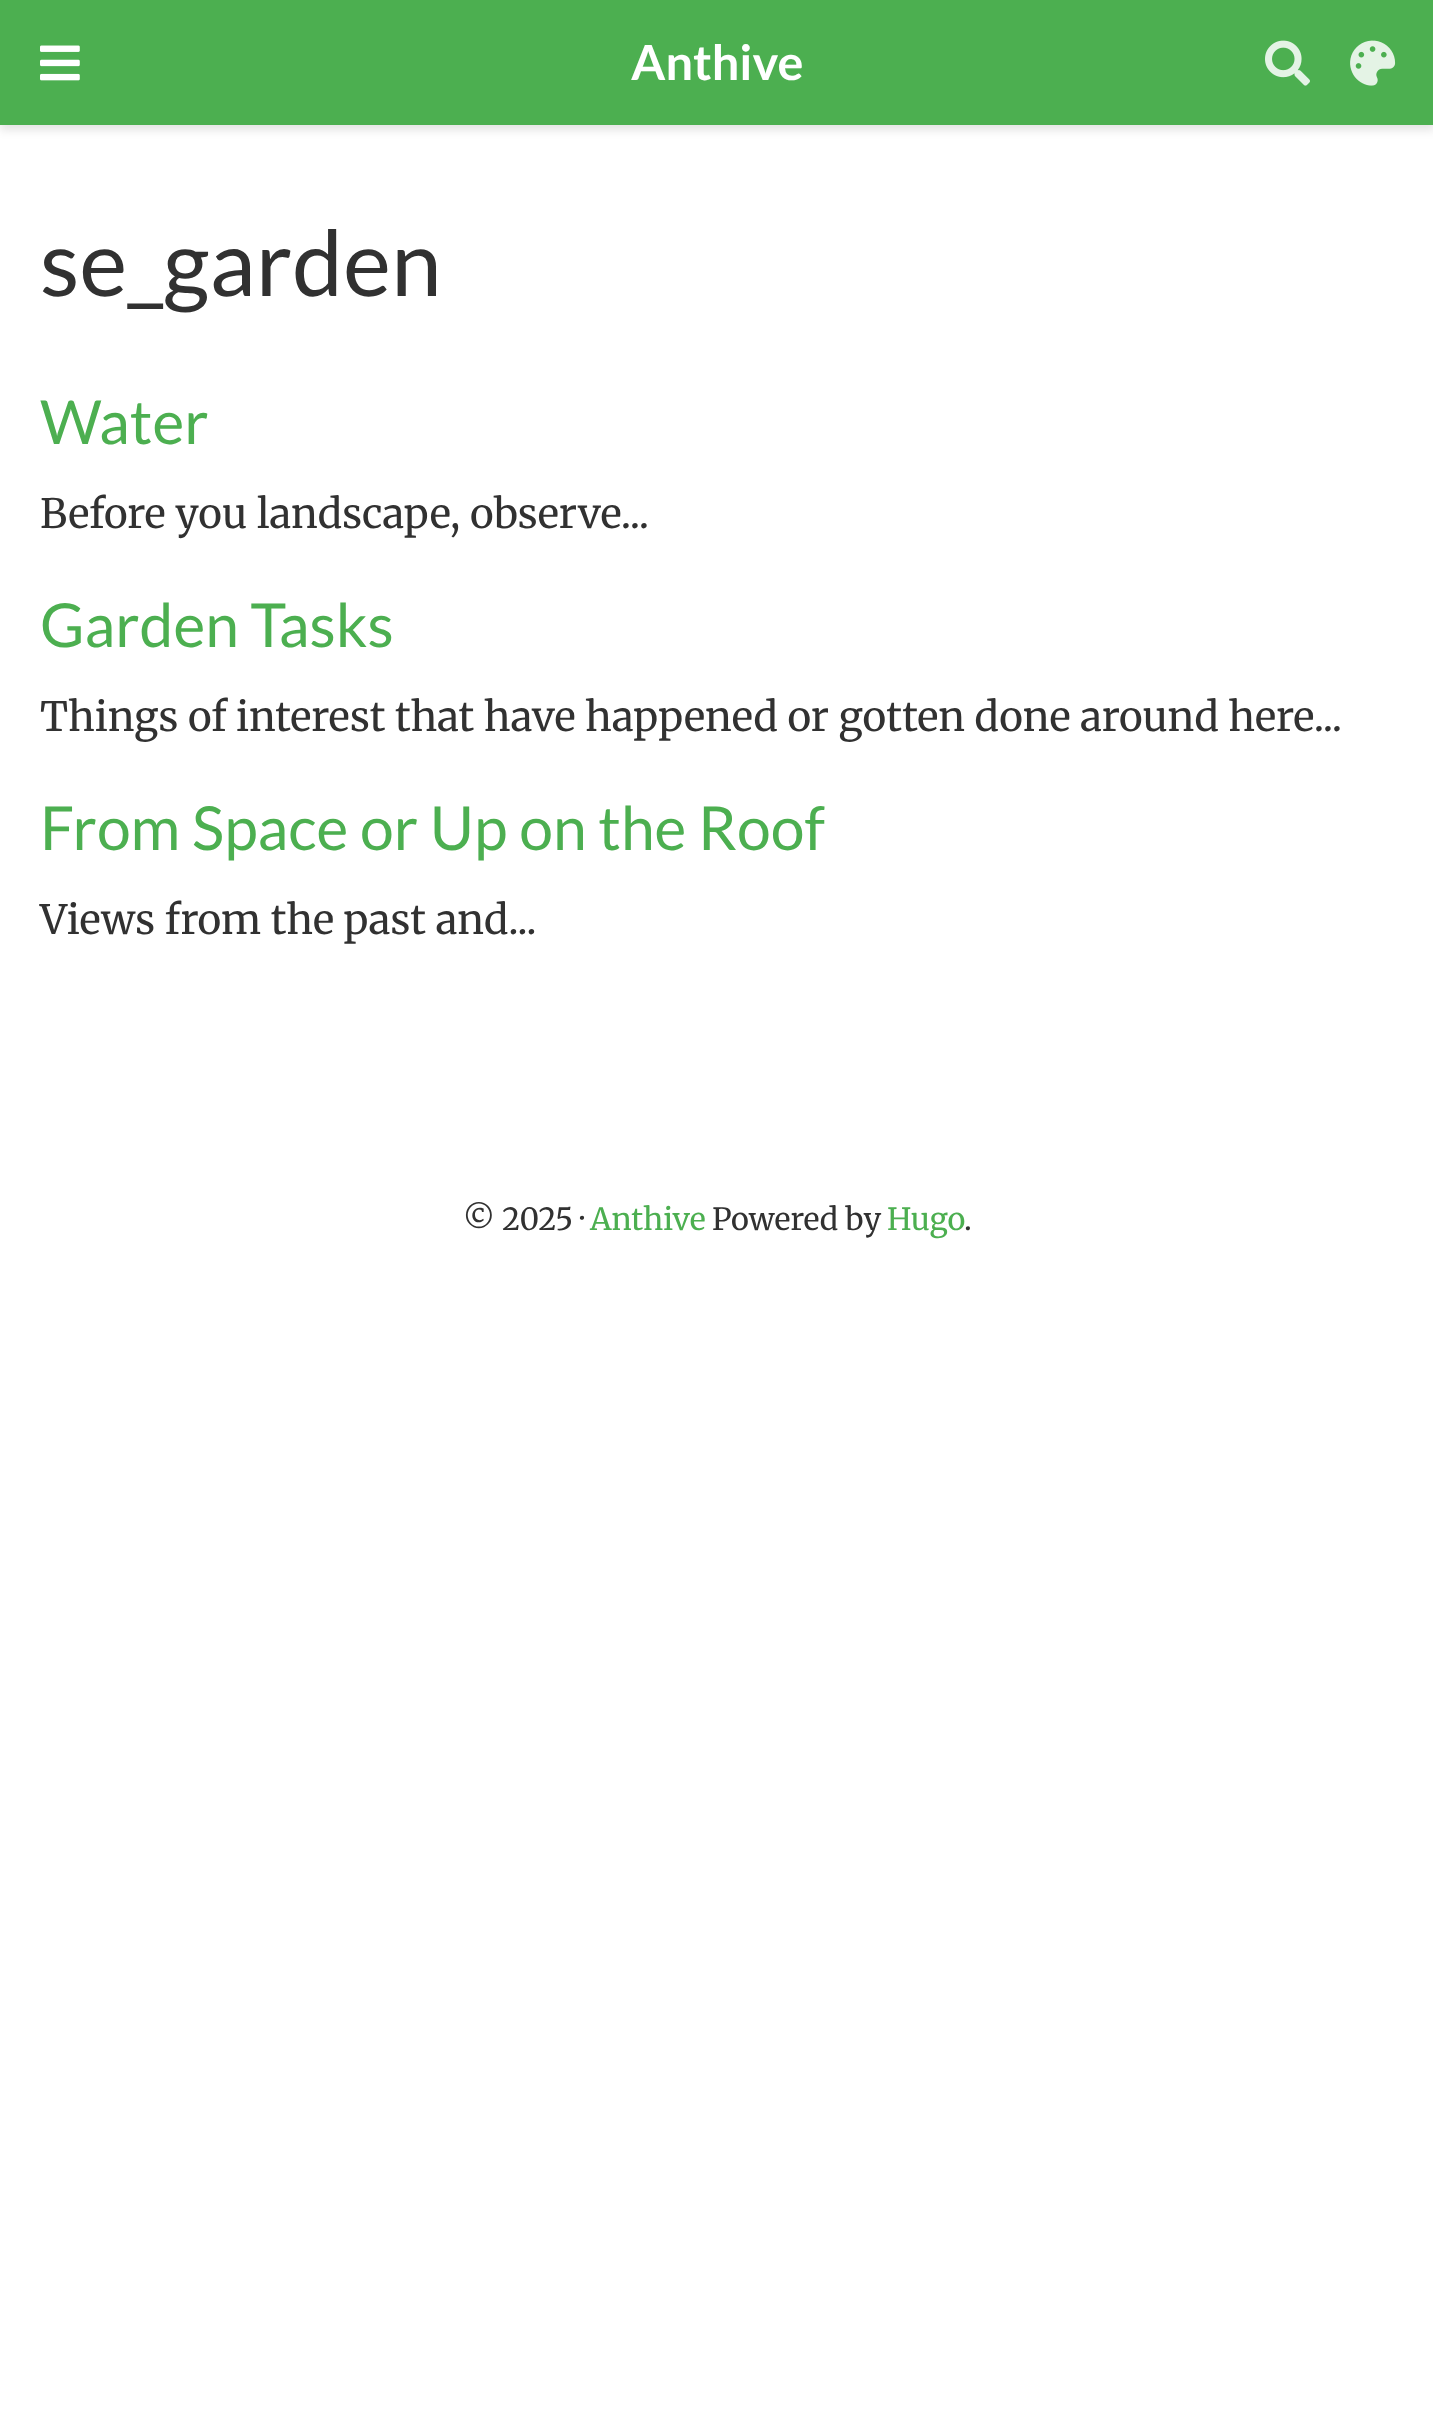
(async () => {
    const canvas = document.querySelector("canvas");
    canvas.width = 1433;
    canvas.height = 2430;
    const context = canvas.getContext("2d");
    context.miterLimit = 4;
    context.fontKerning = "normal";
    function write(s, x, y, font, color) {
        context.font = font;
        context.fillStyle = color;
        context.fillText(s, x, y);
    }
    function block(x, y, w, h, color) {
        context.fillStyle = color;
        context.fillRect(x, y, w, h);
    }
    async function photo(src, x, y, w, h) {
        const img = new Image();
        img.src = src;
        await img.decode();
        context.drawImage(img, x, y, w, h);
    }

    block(0, 0, 1433, 2430, "rgb(255, 255, 255)");
    context.fillStyle = "rgba(0, 0, 0, 0.11)";
    context.filter = "blur(5px)";
    context.beginPath();
    context.rect(0, 5, 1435, 125);
    context.fill();
    context.filter = "none";
    block(0, 0, 1433, 125, "rgb(76, 175, 80)");
    await photo("media/1.png", 40, 45, 40, 36);
    write("Anthive", 631, 80, "bold 48.5px Lato", "rgb(255, 255, 255)");
    await photo("media/2.png", 1265, 40, 45, 46);
    await photo("media/3.png", 1350, 40, 46, 46);
    write("se_garden", 40, 296, "91px Lato", "rgb(49, 49, 49)");
    write("Water", 40, 444, "60.6px Lato", "rgb(76, 175, 80)");
    write("Before you landscape, observe...", 40, 528, "300 40.4px Merriweather", "rgb(49, 49, 49)");
    write("Garden Tasks", 40, 647, "60.6px Lato", "rgb(76, 175, 80)");
    write("Things of interest that have happened or gotten done around here...", 40, 731, "300 40.4px Merriweather", "rgb(49, 49, 49)");
    write("From Space or Up on the Roof", 40, 850, "60.6px Lato", "rgb(76, 175, 80)");
    write("Views from the past and...", 40, 934, "300 40.4px Merriweather", "rgb(49, 49, 49)");
    write("© 2025 ·", 463, 1230, "300 30.5px Merriweather", "rgb(49, 49, 49)");
    write("Anthive", 590, 1230, "300 30.5px Merriweather", "rgb(76, 175, 80)");
    write("Powered by", 712, 1230, "300 30.5px Merriweather", "rgb(49, 49, 49)");
    write("Hugo", 887, 1230, "300 30.5px Merriweather", "rgb(76, 175, 80)");
    write(".", 964, 1230, "300 30.5px Merriweather", "rgb(49, 49, 49)");
})();
